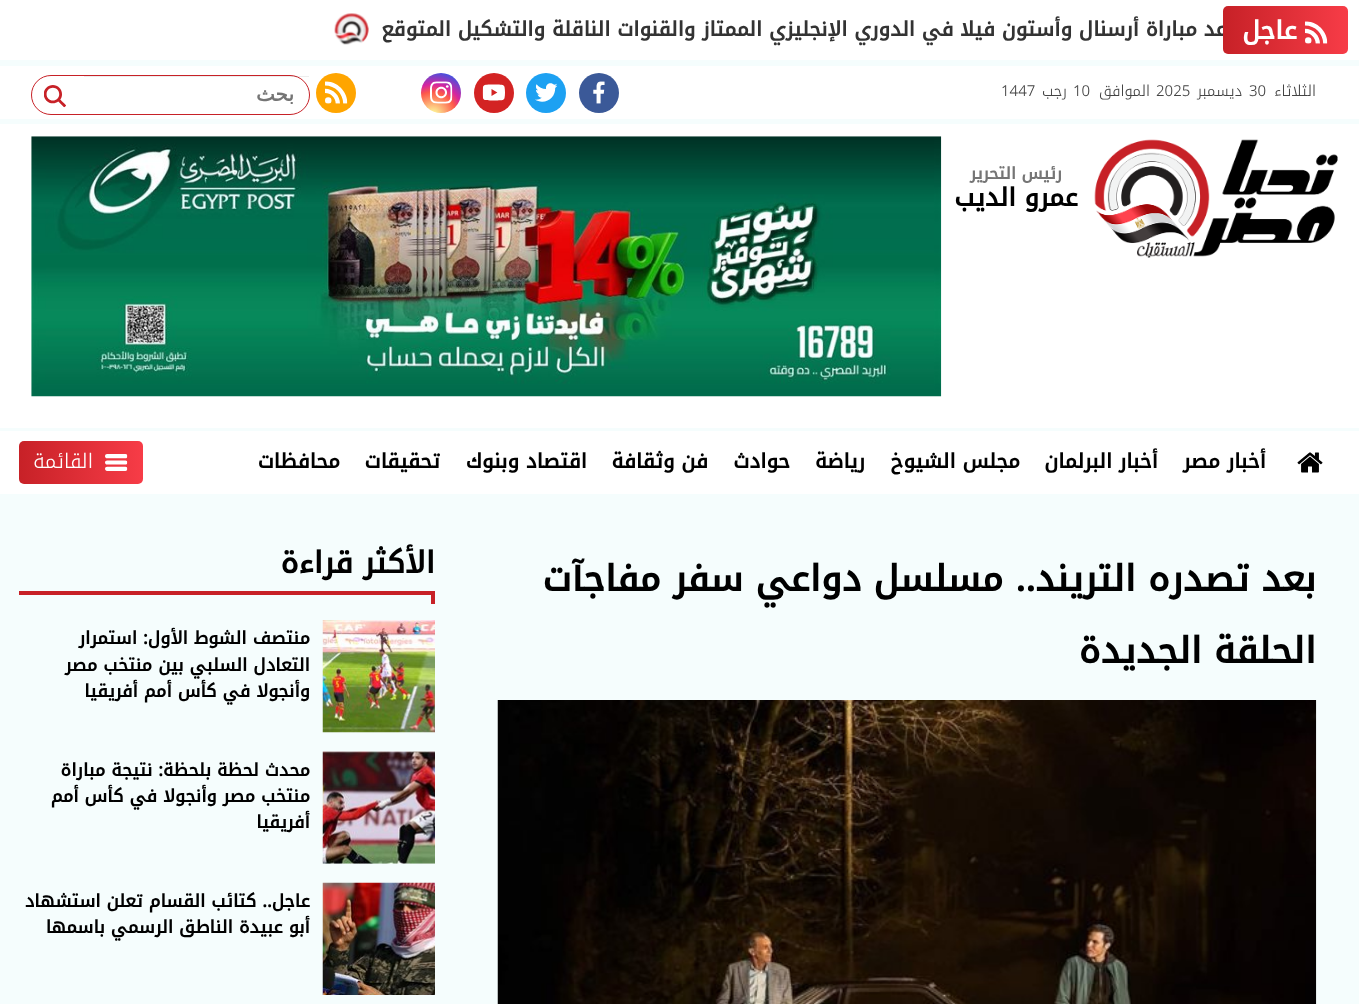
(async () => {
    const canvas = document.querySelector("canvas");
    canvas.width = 1359;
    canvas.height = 1004;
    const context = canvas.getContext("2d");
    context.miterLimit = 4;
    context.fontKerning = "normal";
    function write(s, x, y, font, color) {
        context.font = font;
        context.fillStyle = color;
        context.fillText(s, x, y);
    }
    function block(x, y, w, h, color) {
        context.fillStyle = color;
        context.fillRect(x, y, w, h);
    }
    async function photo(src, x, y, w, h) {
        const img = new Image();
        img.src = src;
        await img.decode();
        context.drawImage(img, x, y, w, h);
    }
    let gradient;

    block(0, 0, 1359, 1004, "rgb(245, 253, 253)");
    block(0, 0, 1359, 60, "rgb(255, 255, 255)");
    gradient = context.createLinearGradient(1348, 30, 1223, 30);
    gradient.addColorStop(0, "rgb(247, 60, 71)");
    gradient.addColorStop(1, "rgb(199, 33, 39)");
    context.fillStyle = gradient;
    context.beginPath();
    context.roundRect(1223, 6, 125, 48, 5);
    context.fill();
    await photo("media/1.png", 1305, 21, 23, 23);
    context.direction = "rtl";
    write("عاجل", 1297, 39, "bold 25px Noto Kufi Arabic", "rgb(255, 255, 255)");
    context.save();
    context.beginPath();
    context.rect(13, 6, 1210, 48);
    context.clip();
    write("موعد مباراة أرسنال وأستون فيلا في الدوري الإنجليزي الممتاز والقنوات الناقلة والتشكيل المتوقع", 1250, 36, "bold 20px Noto Kufi Arabic", "rgb(51, 51, 51)");
    context.restore();
    await photo("media/2.png", 334, 13, 35, 32);
    block(0, 66, 1359, 53, "rgb(255, 255, 255)");
    write("الثلاثاء", 1316, 96, "300 15px Noto Kufi Arabic", "rgb(68, 68, 68)");
    context.direction = "ltr";
    write("30", 1249, 96, "300 15px Noto Kufi Arabic", "rgb(68, 68, 68)");
    context.direction = "rtl";
    write("ديسمبر", 1242, 96, "300 15px Noto Kufi Arabic", "rgb(68, 68, 68)");
    context.direction = "ltr";
    write("2025", 1156, 96, "300 15px Noto Kufi Arabic", "rgb(68, 68, 68)");
    context.direction = "rtl";
    write("الموافق", 1150, 96, "300 15px Noto Kufi Arabic", "rgb(68, 68, 68)");
    context.direction = "ltr";
    write("10", 1073, 96, "300 15px Noto Kufi Arabic", "rgb(68, 68, 68)");
    context.direction = "rtl";
    write("رجب", 1067, 96, "300 15px Noto Kufi Arabic", "rgb(68, 68, 68)");
    context.direction = "ltr";
    write("1447", 1001, 96, "300 15px Noto Kufi Arabic", "rgb(68, 68, 68)");
    context.fillStyle = "rgb(59, 89, 152)";
    context.beginPath();
    context.arc(599, 93, 20, 0, Math.PI * 2);
    context.fill();
    await photo("media/3.png", 593, 81, 12, 23);
    context.fillStyle = "rgb(29, 161, 242)";
    context.beginPath();
    context.arc(546, 93, 20, 0, Math.PI * 2);
    context.fill();
    await photo("media/4.png", 535, 83, 23, 19);
    context.fillStyle = "rgb(211, 35, 35)";
    context.beginPath();
    context.arc(494, 93, 20, 0, Math.PI * 2);
    context.fill();
    await photo("media/5.png", 482, 84, 23, 17);
    gradient = context.createRadialGradient(433, 115, 0, 433, 115, 51);
    gradient.addColorStop(0, "rgb(253, 244, 151)");
    gradient.addColorStop(0.05, "rgb(253, 244, 151)");
    gradient.addColorStop(0.45, "rgb(253, 89, 73)");
    gradient.addColorStop(0.6, "rgb(214, 36, 159)");
    gradient.addColorStop(0.9, "rgb(40, 90, 235)");
    context.fillStyle = gradient;
    context.beginPath();
    context.arc(441, 93, 20, 0, Math.PI * 2);
    context.fill();
    await photo("media/6.png", 430, 81, 23, 23);
    context.fillStyle = "rgb(255, 165, 0)";
    context.beginPath();
    context.arc(336, 93, 20, 0, Math.PI * 2);
    context.fill();
    await photo("media/7.png", 325, 81, 23, 23);
    context.beginPath();
    context.roundRect(31.5, 75.5, 278, 39, 19.5);
    context.strokeStyle = "rgb(199, 33, 39)";
    context.stroke();
    block(84, 76, 225, 1, "rgba(0, 0, 0, 0.07)");
    context.direction = "rtl";
    write("بحث", 294, 101, "bold 20px DejaVu Sans", "rgb(117, 117, 117)");
    await photo("media/8.png", 44, 85, 22, 23);
    block(0, 124, 1359, 304, "rgb(255, 255, 255)");
    await photo("media/9.png", 1094, 139, 244, 119);
    write("رئيس التحرير", 1062, 179, "bold 16.25px Noto Kufi Arabic", "rgb(117, 117, 117)");
    write("عمرو الديب", 1078, 206, "bold 25px Noto Kufi Arabic", "rgb(0, 0, 0)");
    await photo("media/10.png", 31, 136, 911, 261);
    block(0, 431, 1359, 63, "rgb(255, 255, 255)");
    await photo("media/11.png", 1297, 452, 26, 21);
    write("أخبار مصر", 1266, 468, "bold 20px Noto Kufi Arabic", "rgb(0, 0, 0)");
    write("أخبار البرلمان", 1158, 468, "bold 20px Noto Kufi Arabic", "rgb(0, 0, 0)");
    write("مجلس الشيوخ", 1020, 468, "bold 20px Noto Kufi Arabic", "rgb(0, 0, 0)");
    write("رياضة", 865, 468, "bold 20px Noto Kufi Arabic", "rgb(0, 0, 0)");
    write("حوادث", 790, 468, "bold 20px Noto Kufi Arabic", "rgb(0, 0, 0)");
    write("فن وثقافة", 708, 468, "bold 20px Noto Kufi Arabic", "rgb(0, 0, 0)");
    write("اقتصاد وبنوك", 587, 468, "bold 20px Noto Kufi Arabic", "rgb(0, 0, 0)");
    write("تحقيقات", 440, 468, "bold 20px Noto Kufi Arabic", "rgb(0, 0, 0)");
    write("محافظات", 340, 468, "bold 20px Noto Kufi Arabic", "rgb(0, 0, 0)");
    gradient = context.createLinearGradient(143, 463, 19, 463);
    gradient.addColorStop(0, "rgb(247, 60, 71)");
    gradient.addColorStop(1, "rgb(199, 33, 39)");
    context.fillStyle = gradient;
    context.beginPath();
    context.roundRect(19, 441, 124, 43, 5);
    context.fill();
    await photo("media/12.png", 105, 454, 23, 17);
    write("القائمة", 93, 468, "300 20px Noto Kufi Arabic", "rgb(255, 255, 255)");
    write("بعد تصدره التريند.. مسلسل دواعي سفر مفاجآت", 1316, 591, "bold 36px Noto Kufi Arabic", "rgb(0, 0, 0)");
    write("الحلقة الجديدة", 1316, 663, "bold 36px Noto Kufi Arabic", "rgb(0, 0, 0)");
    await photo("media/13.png", 497, 700, 820, 304);
    block(19, 591, 416, 4, "rgb(199, 33, 39)");
    write("الأكثر قراءة", 435, 573, "bold 30px Noto Kufi Arabic", "rgb(0, 0, 0)");
    block(431, 591, 4, 13, "rgb(199, 33, 39)");
    await photo("media/14.png", 322, 620, 113, 113);
    write("منتصف الشوط الأول: استمرار", 310, 644, "bold 17.5px Noto Kufi Arabic", "rgb(0, 0, 0)");
    write("التعادل السلبي بين منتخب مصر", 310, 671, "bold 17.5px Noto Kufi Arabic", "rgb(0, 0, 0)");
    write("وأنجولا في كأس أمم أفريقيا", 310, 697, "bold 17.5px Noto Kufi Arabic", "rgb(0, 0, 0)");
    await photo("media/15.png", 322, 751, 113, 113);
    write("محدث لحظة بلحظة: نتيجة مباراة", 310, 776, "bold 17.5px Noto Kufi Arabic", "rgb(0, 0, 0)");
    write("منتخب مصر وأنجولا في كأس أمم", 310, 802, "bold 17.5px Noto Kufi Arabic", "rgb(0, 0, 0)");
    write("أفريقيا", 310, 828, "bold 17.5px Noto Kufi Arabic", "rgb(0, 0, 0)");
    await photo("media/16.png", 322, 882, 113, 113);
    write("عاجل.. كتائب القسام تعلن استشهاد", 310, 907, "bold 17.5px Noto Kufi Arabic", "rgb(0, 0, 0)");
    write("أبو عبيدة الناطق الرسمي باسمها", 310, 933, "bold 17.5px Noto Kufi Arabic", "rgb(0, 0, 0)");
})();
